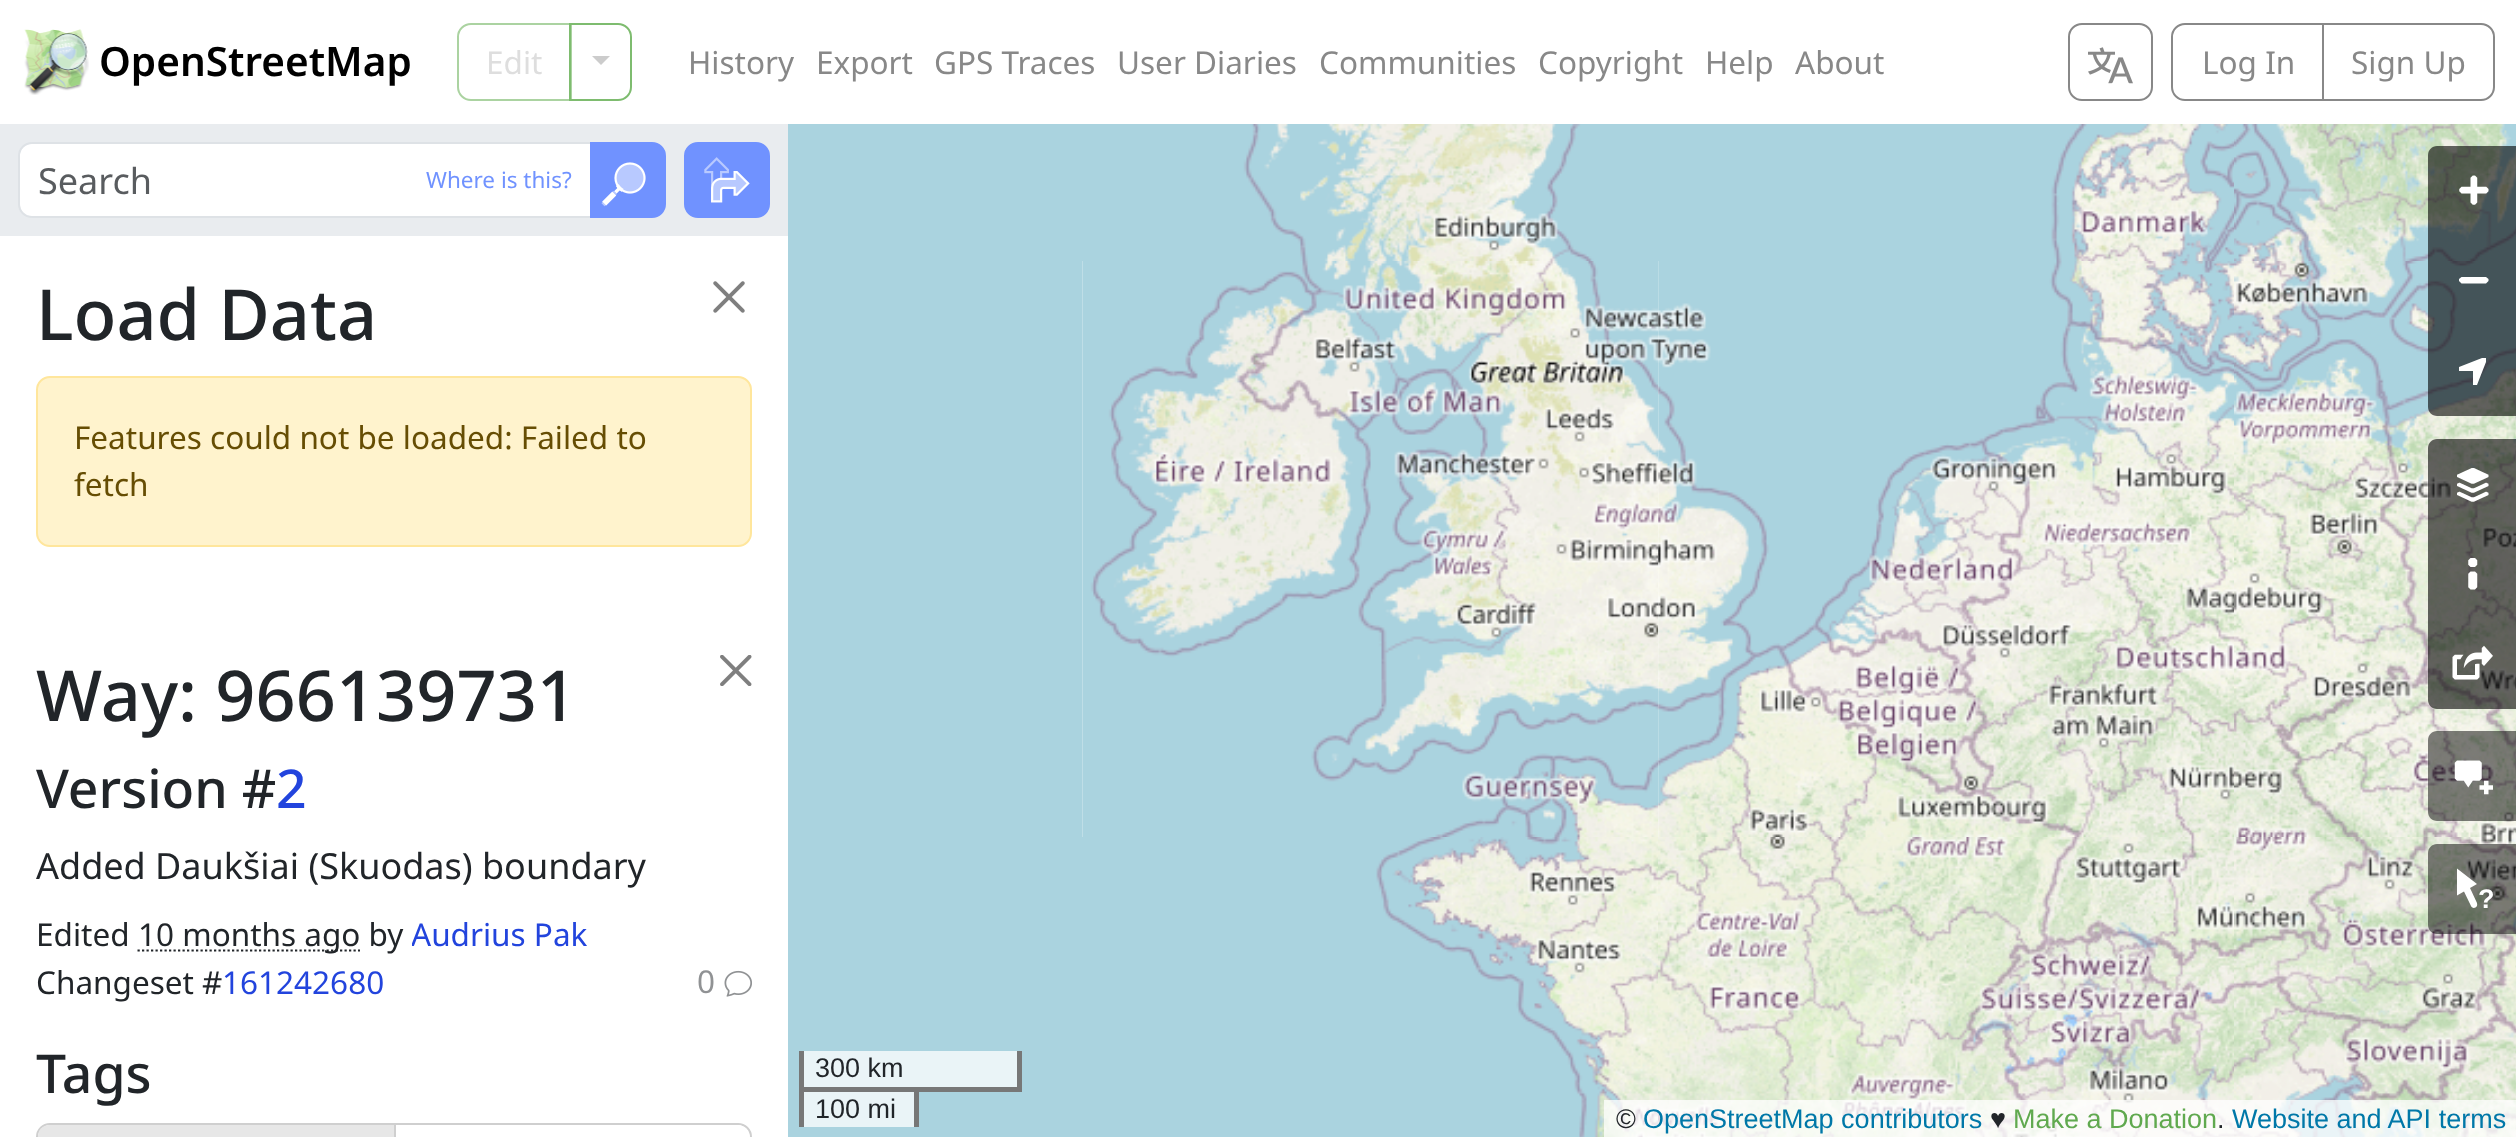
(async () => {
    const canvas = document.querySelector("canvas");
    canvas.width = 2516;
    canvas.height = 1137;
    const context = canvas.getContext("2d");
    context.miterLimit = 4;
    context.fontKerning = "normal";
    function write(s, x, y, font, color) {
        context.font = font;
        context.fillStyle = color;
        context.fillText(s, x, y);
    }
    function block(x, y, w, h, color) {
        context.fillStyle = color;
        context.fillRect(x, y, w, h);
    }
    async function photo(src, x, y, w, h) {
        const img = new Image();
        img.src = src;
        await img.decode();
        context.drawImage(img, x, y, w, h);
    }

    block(0, 0, 2516, 1137, "rgb(255, 255, 255)");
    await photo("media/1.png", 24, 29, 65, 66);
    write("OpenStreetMap", 99, 76, "600 40.5px Noto Sans", "rgb(0, 0, 0)");
    context.beginPath();
    context.roundRect(458, 24, 113, 76, [13, 0, 0, 13]);
    context.strokeStyle = "rgb(171, 211, 161)";
    context.lineWidth = 2;
    context.stroke();
    write("Edit", 486, 74, "31.5px Noto Sans", "rgb(222, 222, 222)");
    context.beginPath();
    context.roundRect(570, 24, 61, 76, [0, 13, 13, 0]);
    context.strokeStyle = "rgb(126, 188, 111)";
    context.stroke();
    context.fillStyle = "rgb(204, 204, 204)";
    context.beginPath();
    context.moveTo(592, 56);
    context.lineTo(610, 56);
    context.lineTo(601, 65);
    context.closePath();
    context.fill();
    write("History", 688, 74, "31.5px Noto Sans", "rgb(136, 136, 136)");
    write("Export", 816, 74, "31.5px Noto Sans", "rgb(136, 136, 136)");
    write("GPS Traces", 934, 74, "31.5px Noto Sans", "rgb(136, 136, 136)");
    write("User Diaries", 1117, 74, "31.5px Noto Sans", "rgb(136, 136, 136)");
    write("Communities", 1319, 74, "31.5px Noto Sans", "rgb(136, 136, 136)");
    write("Copyright", 1538, 74, "31.5px Noto Sans", "rgb(136, 136, 136)");
    write("Help", 1705, 74, "31.5px Noto Sans", "rgb(136, 136, 136)");
    write("About", 1795, 74, "31.5px Noto Sans", "rgb(136, 136, 136)");
    context.beginPath();
    context.roundRect(2069, 24, 83, 76, 13);
    context.strokeStyle = "rgb(136, 136, 136)";
    context.stroke();
    await photo("media/2.png", 2088, 47, 45, 37);
    context.beginPath();
    context.roundRect(2172, 24, 151, 76, [13, 0, 0, 13]);
    context.stroke();
    write("Log In", 2202, 74, "31.5px Noto Sans", "rgb(136, 136, 136)");
    context.beginPath();
    context.roundRect(2323, 24, 171, 76, [0, 13, 13, 0]);
    context.stroke();
    write("Sign Up", 2351, 74, "31.5px Noto Sans", "rgb(136, 136, 136)");
    block(0, 124, 788, 112, "rgb(233, 236, 239)");
    context.fillStyle = "rgb(255, 255, 255)";
    context.beginPath();
    context.roundRect(20, 144, 570, 72, [11, 0, 0, 11]);
    context.fill();
    context.beginPath();
    context.roundRect(19, 143, 572, 74, [13, 0, 0, 13]);
    context.strokeStyle = "rgb(222, 226, 230)";
    context.stroke();
    write("Search", 38, 194, "36px Noto Sans", "rgb(89, 92, 95)");
    write("Where is this?", 426, 188, "22.5px Noto Sans", "rgb(112, 146, 255)");
    context.beginPath();
    context.roundRect(591, 143, 74, 74, [0, 13, 13, 0]);
    context.fill();
    context.strokeStyle = "rgb(112, 146, 255)";
    context.stroke();
    await photo("media/3.png", 601, 162, 45, 45);
    context.beginPath();
    context.roundRect(685, 143, 84, 74, 13);
    context.fill();
    context.stroke();
    await photo("media/4.png", 704, 157, 46, 46);
    write("Load Data", 36, 340, "500 70.25px Noto Sans", "rgb(33, 37, 41)");
    await photo("media/5.png", 713, 281, 32, 32);
    context.fillStyle = "rgb(255, 243, 205)";
    context.beginPath();
    context.roundRect(37, 377, 714, 169, 13);
    context.fill();
    context.strokeStyle = "rgb(255, 230, 156)";
    context.stroke();
    write("Features could not be loaded: Failed to", 74, 449, "31.5px Noto Sans", "rgb(102, 77, 3)");
    write("fetch", 74, 496, "31.5px Noto Sans", "rgb(102, 77, 3)");
    write("Way: 966139731", 36, 721, "500 70.25px Noto Sans", "rgb(33, 37, 41)");
    write("Version #", 36, 808, "500 53.5px Noto Sans", "rgb(33, 37, 41)");
    write("2", 276, 808, "500 53.5px Noto Sans", "rgb(34, 68, 221)");
    write("Added Daukšiai (Skuodas) boundary", 36, 879, "36px Noto Sans", "rgb(33, 37, 41)");
    write("Edited", 36, 946, "31.5px Noto Sans", "rgb(33, 37, 41)");
    context.beginPath();
    context.moveTo(137.5, 950.5);
    context.lineTo(360, 950.5);
    context.strokeStyle = "rgb(33, 37, 41)";
    context.lineWidth = 2.2;
    context.setLineDash([2.25, 2.25]);
    context.stroke();
    write("10 months ago by", 138, 946, "31.5px Noto Sans", "rgb(33, 37, 41)");
    context.save();
    context.beginPath();
    context.rect(412, 911, 175, 48);
    context.clip();
    write("Audrius Pak", 411, 946, "31.5px Noto Sans", "rgb(34, 68, 221)");
    context.restore();
    write("Changeset #", 36, 994, "31.5px Noto Sans", "rgb(33, 37, 41)");
    write("161242680", 222, 994, "31.5px Noto Sans", "rgb(34, 68, 221)");
    write("0", 697, 993, "31.5px Noto Sans", "rgb(144, 146, 148)");
    await photo("media/6.png", 724, 970, 28, 27);
    write("Tags", 36, 1093, "500 53.5px Noto Sans", "rgb(33, 37, 41)");
    context.beginPath();
    context.roundRect(37, 1124, 714, 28, 13);
    context.strokeStyle = "rgb(207, 207, 207)";
    context.lineWidth = 2;
    context.setLineDash([]);
    context.stroke();
    context.fillStyle = "rgb(231, 231, 231)";
    context.beginPath();
    context.moveTo(49, 1125);
    context.lineTo(394, 1125);
    context.lineTo(394, 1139);
    context.lineTo(38, 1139);
    context.lineTo(38, 1136);
    context.bezierCurveTo(38, 1130, 43, 1125, 49, 1125);
    context.closePath();
    context.fill();
    context.fillStyle = "rgb(255, 255, 255)";
    context.beginPath();
    context.moveTo(396, 1125);
    context.lineTo(738, 1125);
    context.bezierCurveTo(744, 1125, 749, 1130, 749, 1136);
    context.lineTo(749, 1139);
    context.lineTo(396, 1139);
    context.closePath();
    context.fill();
    block(394, 1125, 2, 12, "rgb(207, 207, 207)");
    await photo("media/7.png", 720, 655, 32, 31);
    block(788, 124, 294, 1013, "rgb(170, 211, 223)");
    await photo("media/8.png", 1082, 124, 576, 137);
    await photo("media/9.png", 1658, 124, 576, 137);
    await photo("media/10.png", 2234, 124, 282, 137);
    await photo("media/11.png", 1082, 261, 577, 576);
    await photo("media/12.png", 1658, 261, 576, 576);
    await photo("media/13.png", 2234, 261, 282, 576);
    block(804, 1092, 110, 35, "rgb(234, 244, 247)");
    await photo("media/14.png", 1082, 837, 576, 300);
    await photo("media/15.png", 1658, 837, 576, 300);
    await photo("media/16.png", 2234, 837, 282, 300);
    context.fillStyle = "rgba(0, 0, 0, 0.6)";
    context.beginPath();
    context.moveTo(2437, 146);
    context.lineTo(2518, 146);
    context.lineTo(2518, 236);
    context.lineTo(2428, 236);
    context.lineTo(2428, 155);
    context.bezierCurveTo(2428, 150, 2432, 146, 2437, 146);
    context.closePath();
    context.fill();
    await photo("media/17.png", 2459, 175, 30, 30);
    block(2428, 236, 88, 90, "rgba(0, 0, 0, 0.6)");
    context.fillStyle = "rgb(255, 255, 255)";
    context.beginPath();
    context.moveTo(2459, 279);
    context.lineTo(2459, 281);
    context.lineTo(2461.5, 283.5);
    context.lineTo(2486, 283.5);
    context.lineTo(2488.5, 281);
    context.lineTo(2488.5, 279);
    context.lineTo(2486, 277);
    context.lineTo(2461.5, 277);
    context.closePath();
    context.fill();
    context.fillStyle = "rgba(0, 0, 0, 0.6)";
    context.beginPath();
    context.moveTo(2428, 326);
    context.lineTo(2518, 326);
    context.lineTo(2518, 416);
    context.lineTo(2437, 416);
    context.bezierCurveTo(2432, 416, 2428, 412, 2428, 407);
    context.closePath();
    context.fill();
    context.fillStyle = "rgb(255, 255, 255)";
    context.beginPath();
    context.moveTo(2473, 371);
    context.lineTo(2473, 385);
    context.lineTo(2477, 385);
    context.lineTo(2486, 362);
    context.lineTo(2486, 358);
    context.lineTo(2482, 358);
    context.lineTo(2459, 367);
    context.lineTo(2459, 371);
    context.closePath();
    context.fill();
    context.fillStyle = "rgba(0, 0, 0, 0.6)";
    context.beginPath();
    context.moveTo(2437, 439);
    context.lineTo(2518, 439);
    context.lineTo(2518, 529);
    context.lineTo(2428, 529);
    context.lineTo(2428, 448);
    context.bezierCurveTo(2428, 443, 2432, 439, 2437, 439);
    context.closePath();
    context.fill();
    await photo("media/18.png", 2457, 468, 32, 34);
    block(2428, 529, 88, 90, "rgba(0, 0, 0, 0.6)");
    await photo("media/19.png", 2468, 558, 10, 32);
    context.beginPath();
    context.moveTo(2428, 619);
    context.lineTo(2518, 619);
    context.lineTo(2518, 709);
    context.lineTo(2437, 709);
    context.bezierCurveTo(2432, 709, 2428, 705, 2428, 700);
    context.closePath();
    context.fill();
    await photo("media/20.png", 2452, 645, 41, 35);
    context.fillStyle = "rgba(0, 0, 0, 0.5)";
    context.beginPath();
    context.moveTo(2437, 731);
    context.lineTo(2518, 731);
    context.lineTo(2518, 821);
    context.lineTo(2437, 821);
    context.bezierCurveTo(2432, 821, 2428, 817, 2428, 812);
    context.lineTo(2428, 740);
    context.bezierCurveTo(2428, 735, 2432, 731, 2437, 731);
    context.closePath();
    context.fill();
    await photo("media/21.png", 2454, 760, 39, 35);
    context.beginPath();
    context.moveTo(2437, 844);
    context.lineTo(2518, 844);
    context.lineTo(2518, 934);
    context.lineTo(2437, 934);
    context.bezierCurveTo(2432, 934, 2428, 930, 2428, 925);
    context.lineTo(2428, 853);
    context.bezierCurveTo(2428, 848, 2432, 844, 2437, 844);
    context.closePath();
    context.fill();
    write("?", 2478, 908, "bold 27px Liberation Sans", "rgb(255, 255, 255)");
    context.beginPath();
    context.moveTo(2457, 868.5);
    context.lineTo(2477, 884);
    context.lineTo(2470, 888);
    context.lineTo(2477, 903);
    context.bezierCurveTo(2477.5, 905, 2477, 907, 2475.5, 907.5);
    context.bezierCurveTo(2473.5, 908.5, 2471.5, 907.5, 2471, 906);
    context.lineTo(2464, 891.5);
    context.lineTo(2457, 895.5);
    context.closePath();
    context.fill();
    block(804, 1051, 213, 36, "rgb(234, 244, 247)");
    block(1017, 1051, 5, 40, "rgb(119, 119, 119)");
    block(919, 1087, 103, 5, "rgb(119, 119, 119)");
    block(799, 1051, 5, 40, "rgb(119, 119, 119)");
    write("300 km", 815, 1077, "27px Liberation Sans", "rgb(33, 37, 41)");
    block(799, 1087, 119, 5, "rgb(119, 119, 119)");
    block(914, 1087, 5, 40, "rgb(119, 119, 119)");
    block(799, 1087, 5, 40, "rgb(119, 119, 119)");
    write("100 mi", 815, 1118, "27px Liberation Sans", "rgb(33, 37, 41)");
    block(1604, 1100, 912, 37, "rgba(255, 255, 255, 0.75)");
    write("©", 1616, 1128, "27px Liberation Sans", "rgb(33, 37, 41)");
    write("OpenStreetMap contributors", 1643, 1128, "27px Liberation Sans", "rgb(0, 120, 168)");
    write("♥", 1990, 1128, "27px Liberation Sans", "rgb(33, 37, 41)");
    write("Make a Donation", 2013, 1128, "27px Liberation Sans", "rgb(96, 169, 79)");
    write(".", 2217, 1128, "27px Liberation Sans", "rgb(33, 37, 41)");
    write("Website and API terms", 2232, 1128, "27px Liberation Sans", "rgb(0, 120, 168)");
})();
